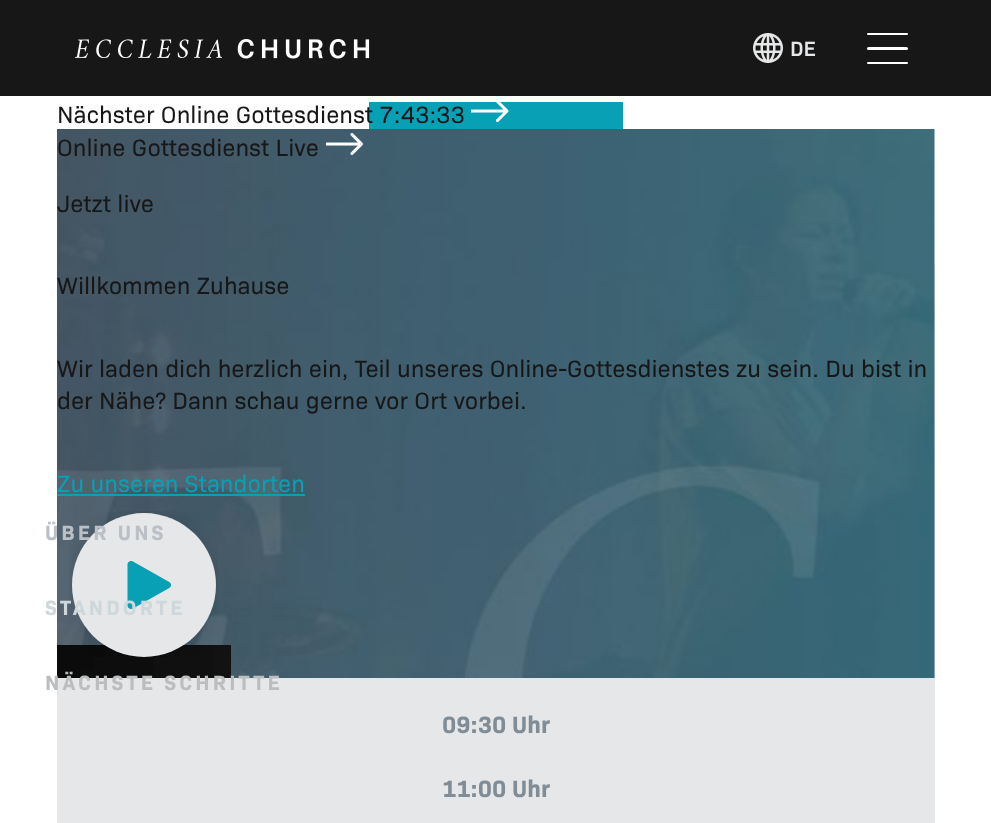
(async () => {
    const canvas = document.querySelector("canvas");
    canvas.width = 991;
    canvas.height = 823;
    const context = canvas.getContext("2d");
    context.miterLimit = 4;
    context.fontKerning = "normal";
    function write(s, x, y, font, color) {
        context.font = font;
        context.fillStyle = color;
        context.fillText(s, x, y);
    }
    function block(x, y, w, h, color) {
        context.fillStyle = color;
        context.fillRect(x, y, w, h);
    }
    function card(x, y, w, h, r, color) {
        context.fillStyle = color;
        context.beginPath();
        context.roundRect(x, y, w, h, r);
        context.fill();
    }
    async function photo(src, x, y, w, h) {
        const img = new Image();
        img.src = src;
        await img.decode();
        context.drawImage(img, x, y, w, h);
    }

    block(0, 0, 991, 823, "rgb(255, 255, 255)");
    block(0, 0, 991, 96, "rgb(23, 23, 23)");
    await photo("media/1.png", 74, 39, 296, 20);
    await photo("media/2.png", 753, 33, 30, 30);
    write("DE", 790, 56, "600 21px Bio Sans", "rgb(230, 231, 232)");
    card(867, 33, 41, 2, 1, "rgb(255, 255, 255)");
    card(867, 47, 41, 3, 1.5, "rgb(255, 255, 255)");
    card(867, 62, 41, 2, 1, "rgb(255, 255, 255)");
    block(57, 264, 878, 559, "rgb(230, 231, 232)");
    await photo("media/4.png", 57, 129, 878, 549);
    await photo("media/7.png", 57, 645, 174, 33);
    await photo("media/6.png", 69, 511, 149, 146);
    context.letterSpacing = "3.1px";
    write("ÜBER UNS", 45, 540, "bold 21px Bio Sans", "rgb(186, 192, 197)");
    write("STANDORTE", 45, 615, "bold 21px Bio Sans", "rgb(206, 216, 219)");
    write("NÄCHSTE SCHRITTE", 45, 690, "bold 21px Bio Sans", "rgb(187, 189, 191)");
    block(369, 102, 254, 27, "rgb(8, 160, 181)");
    context.letterSpacing = "0px";
    write("Nächster Online Gottesdienst 7:43:33", 57, 123, "24px Bio Sans", "rgb(23, 23, 23)");
    await photo("media/3.png", 471, 102, 38, 20);
    write("Online Gottesdienst Live", 57, 156, "24px Bio Sans", "rgb(23, 23, 23)");
    await photo("media/5.png", 326, 133, 37, 22);
    write("Jetzt live", 57, 212, "24px Bio Sans", "rgb(23, 23, 23)");
    write("Willkommen Zuhause", 57, 294, "24px Bio Sans", "rgb(23, 23, 23)");
    write("Wir laden dich herzlich ein, Teil unseres Online-Gottesdienstes zu sein. Du bist in", 57, 377, "24px Bio Sans", "rgb(23, 23, 23)");
    write("der Nähe? Dann schau gerne vor Ort vorbei.", 57, 409, "24px Bio Sans", "rgb(23, 23, 23)");
    write("Zu unseren Standorten", 57, 492, "24px Bio Sans", "rgb(8, 160, 181)");
    block(57, 494, 248, 2, "rgb(8, 160, 181)");
    write("09:30 Uhr", 442, 733, "bold 24px Bio Sans", "rgb(128, 140, 150)");
    write("11:00 Uhr", 442, 797, "bold 24px Bio Sans", "rgb(128, 140, 150)");
})();
